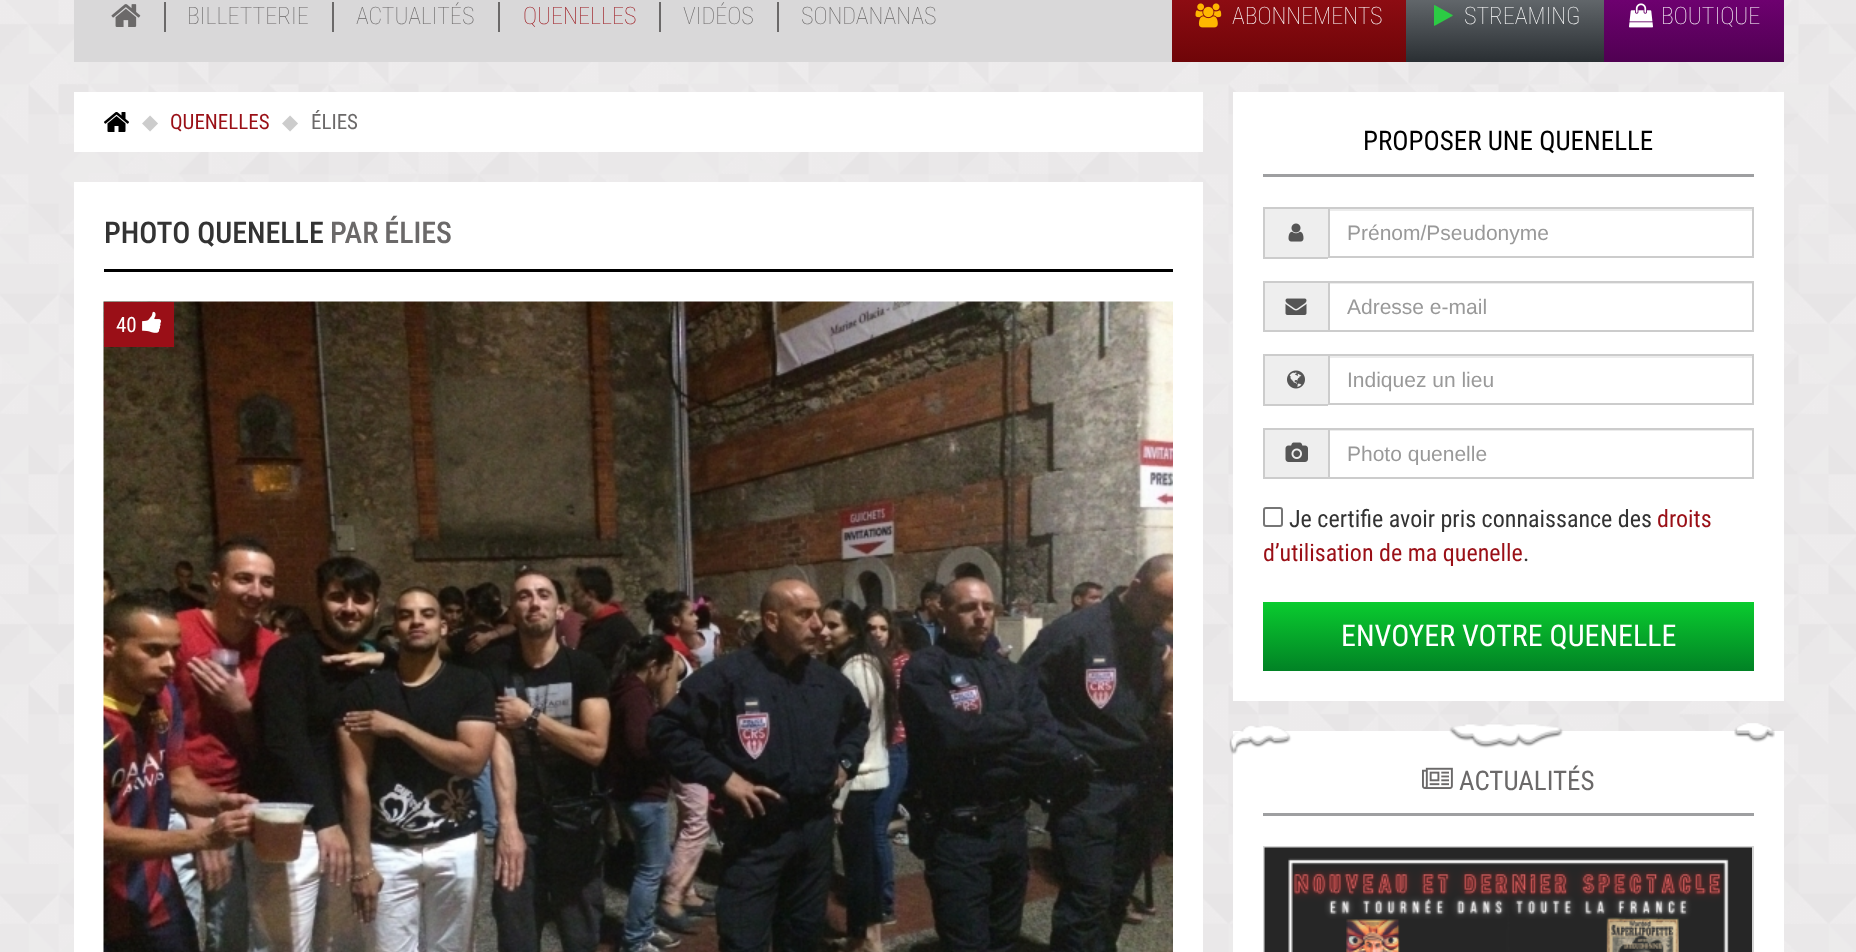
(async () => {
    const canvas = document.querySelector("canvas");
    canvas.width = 1856;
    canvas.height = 952;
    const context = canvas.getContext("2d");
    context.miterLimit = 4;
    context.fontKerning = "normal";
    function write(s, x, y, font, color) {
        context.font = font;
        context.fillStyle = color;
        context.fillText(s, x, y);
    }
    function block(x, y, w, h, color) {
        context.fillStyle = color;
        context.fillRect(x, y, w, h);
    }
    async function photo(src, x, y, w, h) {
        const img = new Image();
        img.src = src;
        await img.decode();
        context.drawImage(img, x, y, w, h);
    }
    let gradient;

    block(0, 0, 1856, 952, "rgb(255, 255, 255)");
    await photo("media/1.png", 0, 0, 1856, 952);
    block(74, 0, 1098, 62, "rgb(217, 216, 217)");
    block(164, 2, 2, 30, "rgb(107, 105, 105)");
    await photo("media/2.png", 111, 4, 30, 23);
    block(332, 2, 2, 30, "rgb(107, 105, 105)");
    write("BILLETTERIE", 187, 24, "100 24px Roboto Condensed", "rgb(107, 105, 105)");
    block(498, 2, 2, 30, "rgb(107, 105, 105)");
    write("ACTUALITÉS", 356, 24, "100 24px Roboto Condensed", "rgb(107, 105, 105)");
    block(659, 2, 2, 30, "rgb(107, 105, 105)");
    write("QUENELLES", 523, 24, "100 24px Roboto Condensed", "rgb(154, 15, 22)");
    block(777, 2, 2, 30, "rgb(107, 105, 105)");
    write("VIDÉOS", 683, 24, "100 24px Roboto Condensed", "rgb(107, 105, 105)");
    write("SONDANANAS", 801, 24, "100 24px Roboto Condensed", "rgb(107, 105, 105)");
    gradient = context.createLinearGradient(1289, -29, 1289, 62);
    gradient.addColorStop(0, "rgb(154, 15, 23)");
    gradient.addColorStop(1, "rgb(111, 5, 8)");
    context.fillStyle = gradient;
    context.fillRect(1172, 0, 234, 62);
    await photo("media/3.png", 1195, 3, 27, 25);
    write("ABONNEMENTS", 1232, 24, "100 24px Roboto Condensed", "rgb(255, 255, 255)");
    gradient = context.createLinearGradient(1505, -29, 1505, 62);
    gradient.addColorStop(0, "rgb(123, 128, 132)");
    gradient.addColorStop(1, "rgb(42, 47, 51)");
    context.fillStyle = gradient;
    context.fillRect(1406, 0, 198, 62);
    await photo("media/4.png", 1434, 5, 19, 21);
    write("STREAMING", 1464, 24, "100 24px Roboto Condensed", "rgb(255, 255, 255)");
    gradient = context.createLinearGradient(1694, -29, 1694, 62);
    gradient.addColorStop(0, "rgb(123, 1, 125)");
    gradient.addColorStop(1, "rgb(80, 0, 82)");
    context.fillStyle = gradient;
    context.fillRect(1604, 0, 180, 62);
    await photo("media/5.png", 1629, 3, 24, 25);
    write("BOUTIQUE", 1661, 24, "100 24px Roboto Condensed", "rgb(255, 255, 255)");
    block(74, 92, 1129, 60, "rgb(255, 255, 255)");
    await photo("media/6.png", 104, 112, 25, 20);
    write("◆", 142, 129, "21px DejaVu Sans", "rgb(204, 204, 204)");
    write("QUENELLES", 170, 129, "21px Roboto Condensed", "rgb(154, 15, 22)");
    write("◆", 282, 129, "21px DejaVu Sans", "rgb(204, 204, 204)");
    write("ÉLIES", 311, 129, "21px Roboto Condensed", "rgb(107, 105, 105)");
    block(74, 182, 1129, 770, "rgb(255, 255, 255)");
    block(104, 269, 1069, 3, "rgb(0, 0, 0)");
    write("PHOTO QUENELLE", 104, 243, "500 30px Roboto Condensed", "rgb(51, 51, 51)");
    context.wordSpacing = "-1px";
    write("PAR ÉLIES", 330, 243, "500 30px Roboto Condensed", "rgb(107, 105, 105)");
    await photo("media/7.png", 103, 301, 1070, 651);
    block(104, 302, 70, 45, "rgb(154, 15, 23)");
    context.wordSpacing = "0px";
    write("40", 116, 332, "21px Roboto Condensed", "rgb(255, 255, 255)");
    await photo("media/8.png", 142, 311, 20, 22);
    block(1233, 92, 551, 609, "rgb(255, 255, 255)");
    block(1263, 174, 491, 3, "rgb(158, 159, 161)");
    write("PROPOSER UNE QUENELLE", 1363, 150, "27px Roboto Condensed", "rgb(0, 0, 0)");
    block(1265, 209, 63, 48, "rgb(238, 238, 238)");
    block(1263, 207, 65, 2, "rgb(204, 204, 204)");
    block(1263, 257, 65, 2, "rgb(204, 204, 204)");
    block(1263, 207, 2, 51, "rgb(204, 204, 204)");
    await photo("media/9.png", 1288, 223, 16, 19);
    block(1329, 209, 423, 2, "rgb(236, 236, 236)");
    context.strokeStyle = "rgb(204, 204, 204)";
    context.lineWidth = 2;
    context.strokeRect(1329, 208, 424, 49);
    write("Prénom/Pseudonyme", 1347, 240, "21px Liberation Sans", "rgb(153, 153, 153)");
    block(1265, 283, 63, 47, "rgb(238, 238, 238)");
    block(1263, 281, 65, 2, "rgb(204, 204, 204)");
    block(1263, 330, 65, 2, "rgb(204, 204, 204)");
    block(1263, 281, 2, 51, "rgb(204, 204, 204)");
    await photo("media/10.png", 1285, 298, 22, 17);
    block(1329, 283, 423, 1, "rgb(236, 236, 236)");
    context.strokeRect(1329, 282, 424, 49);
    write("Adresse e-mail", 1347, 314, "21px Liberation Sans", "rgb(153, 153, 153)");
    block(1265, 356, 63, 48, "rgb(238, 238, 238)");
    block(1263, 354, 65, 2, "rgb(204, 204, 204)");
    block(1263, 404, 65, 2, "rgb(204, 204, 204)");
    block(1263, 354, 2, 51, "rgb(204, 204, 204)");
    await photo("media/11.png", 1287, 370, 18, 19);
    block(1329, 356, 423, 2, "rgb(236, 236, 236)");
    context.strokeRect(1329, 355, 424, 49);
    write("Indiquez un lieu", 1347, 387, "21px Liberation Sans", "rgb(153, 153, 153)");
    block(1265, 430, 63, 47, "rgb(238, 238, 238)");
    block(1263, 428, 65, 2, "rgb(204, 204, 204)");
    block(1263, 477, 65, 2, "rgb(204, 204, 204)");
    block(1263, 428, 2, 51, "rgb(204, 204, 204)");
    await photo("media/12.png", 1285, 442, 23, 20);
    block(1329, 430, 423, 1, "rgb(236, 236, 236)");
    context.strokeRect(1329, 429, 424, 49);
    context.save();
    context.beginPath();
    context.rect(1347, 441, 387, 24);
    context.clip();
    write("Photo quenelle", 1347, 461, "21px Liberation Sans", "rgb(153, 153, 153)");
    context.restore();
    context.beginPath();
    context.roundRect(1264, 508, 18, 18, 2);
    context.strokeStyle = "rgb(118, 118, 118)";
    context.stroke();
    write("Je certifie avoir pris connaissance des", 1289, 527, "24px Roboto Condensed", "rgb(51, 51, 51)");
    write("droits", 1657, 527, "24px Roboto Condensed", "rgb(154, 15, 22)");
    write("d’utilisation de ma quenelle", 1263, 561, "24px Roboto Condensed", "rgb(154, 15, 22)");
    write(".", 1523, 561, "24px Roboto Condensed", "rgb(51, 51, 51)");
    gradient = context.createLinearGradient(1508, 602, 1508, 671);
    gradient.addColorStop(0, "rgb(10, 204, 47)");
    gradient.addColorStop(1, "rgb(1, 130, 37)");
    context.fillStyle = gradient;
    context.fillRect(1263, 602, 491, 69);
    write("ENVOYER VOTRE QUENELLE", 1341, 646, "30px Roboto Condensed", "rgb(255, 255, 255)");
    block(1233, 731, 551, 221, "rgb(255, 255, 255)");
    block(1263, 813, 491, 3, "rgb(158, 159, 161)");
    await photo("media/13.png", 1229, 723, 546, 32);
    await photo("media/14.png", 1422, 767, 31, 22);
    write("ACTUALITÉS", 1459, 790, "27px Roboto Condensed", "rgb(107, 105, 105)");
    context.strokeStyle = "rgb(204, 204, 204)";
    context.strokeRect(1264, 847, 489, 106);
    await photo("media/15.png", 1264, 847, 488, 105);
    block(1263, 846, 491, 106, "rgba(255, 255, 255, 0.15)");
})();
